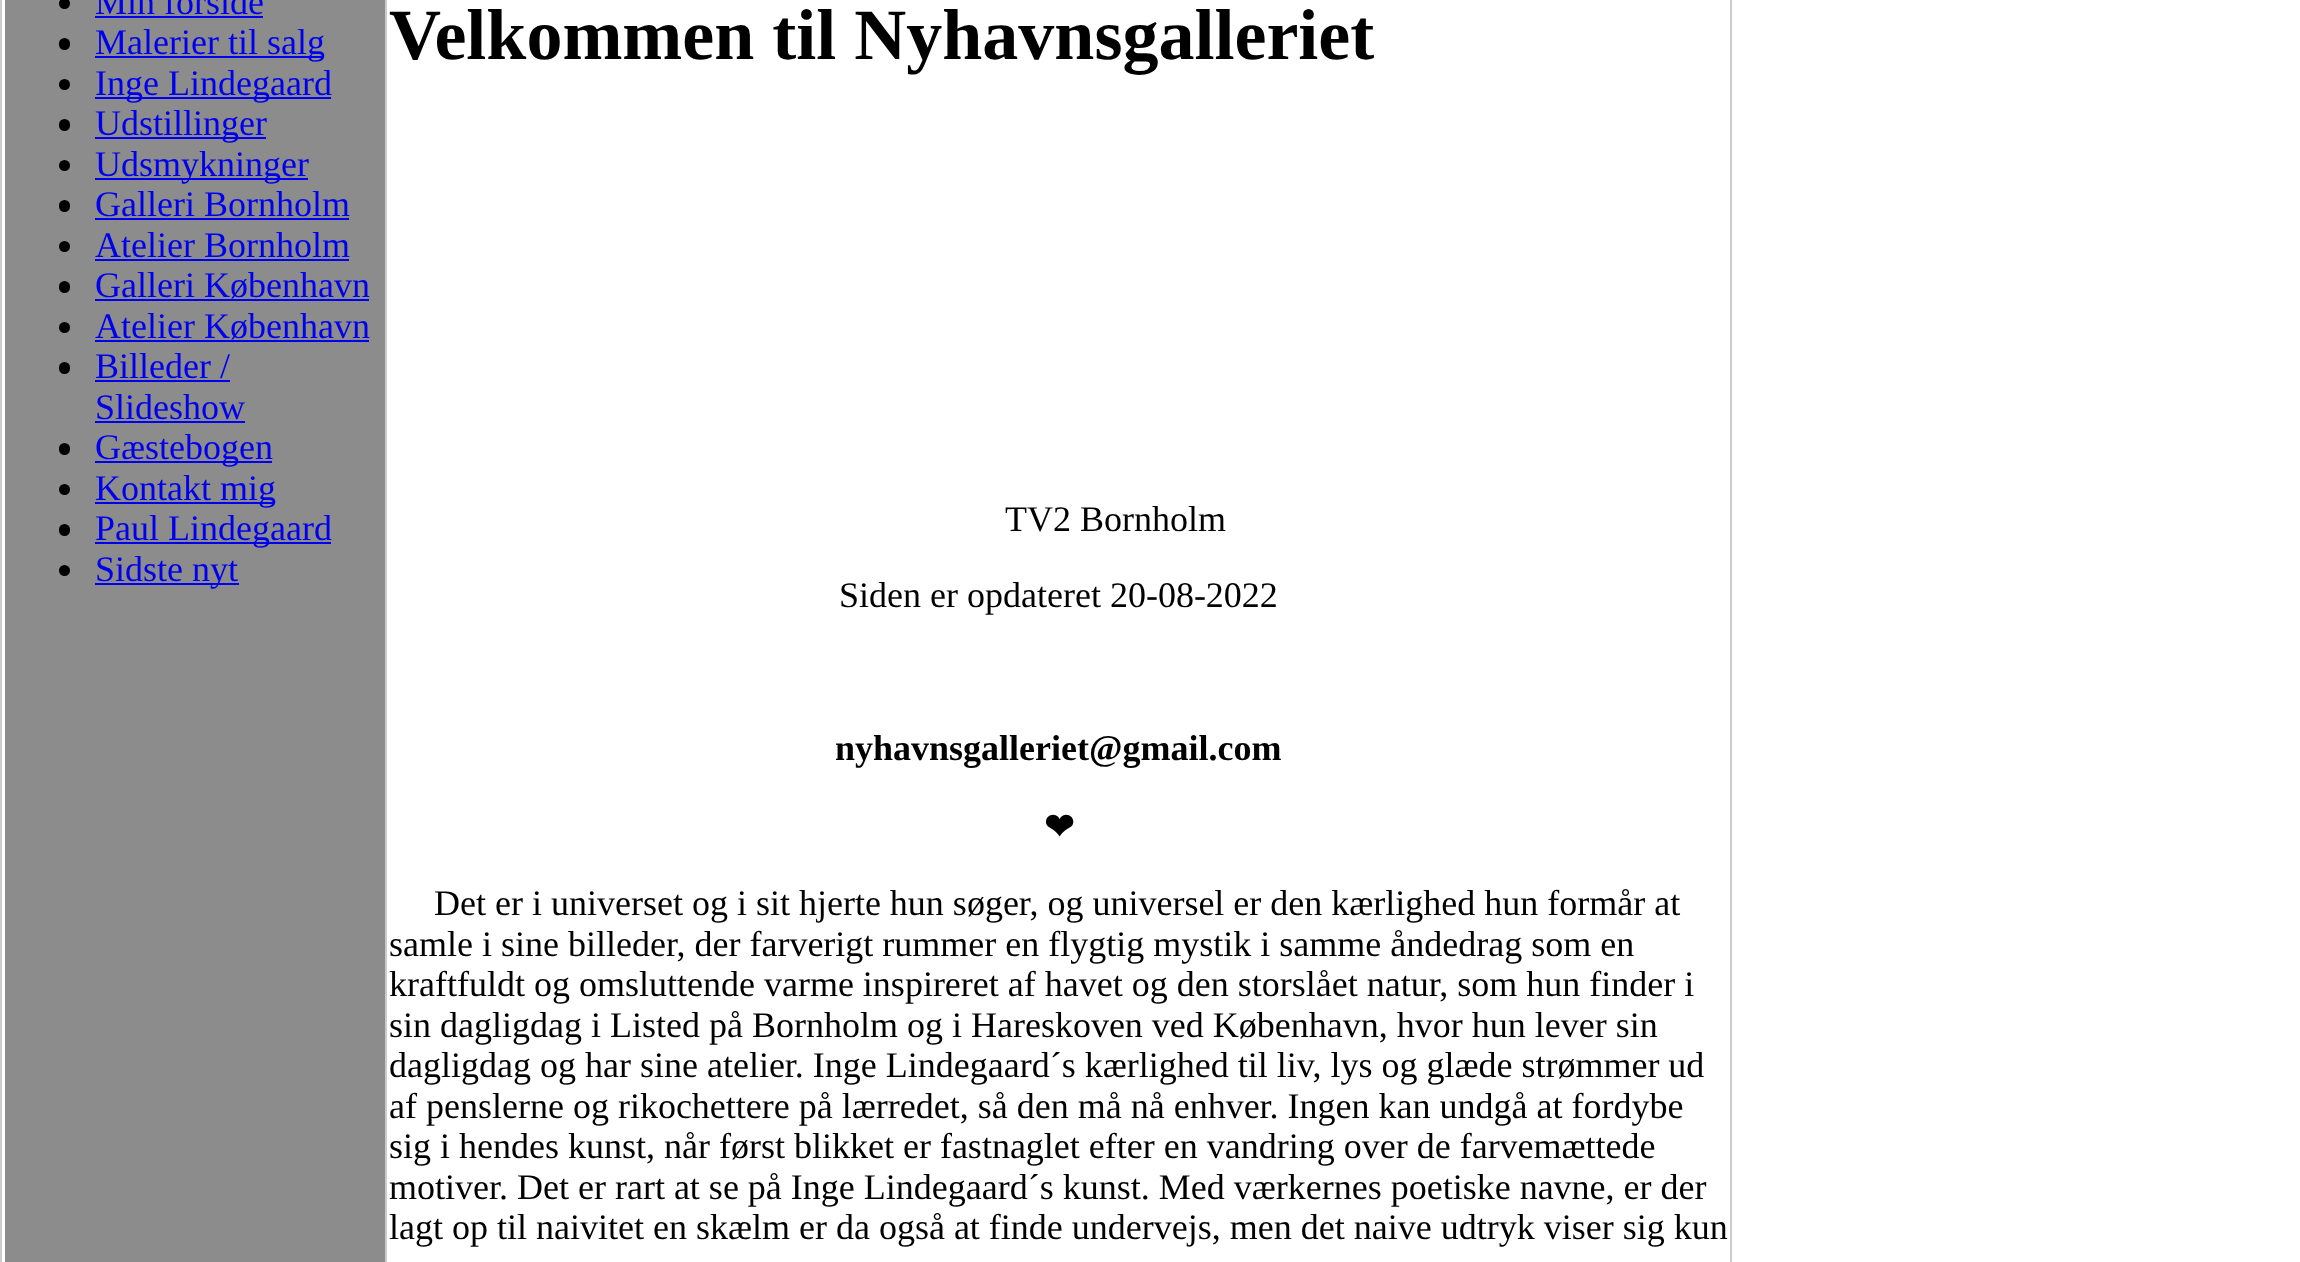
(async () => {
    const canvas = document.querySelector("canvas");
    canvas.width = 2300;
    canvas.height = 1262;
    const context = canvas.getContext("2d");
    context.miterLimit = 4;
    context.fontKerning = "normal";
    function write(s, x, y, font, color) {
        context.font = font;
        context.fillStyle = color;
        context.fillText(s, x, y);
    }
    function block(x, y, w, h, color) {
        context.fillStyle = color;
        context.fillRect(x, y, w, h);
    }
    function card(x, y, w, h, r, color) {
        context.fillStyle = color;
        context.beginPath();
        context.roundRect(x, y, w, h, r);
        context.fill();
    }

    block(0, 0, 2300, 1262, "rgb(255, 255, 255)");
    block(0, 0, 2, 1262, "rgb(204, 204, 204)");
    block(5, 0, 380, 1262, "rgb(140, 140, 140)");
    context.fillStyle = "rgb(0, 0, 0)";
    context.beginPath();
    context.arc(64.5, 3.5, 5.5, 0, Math.PI * 2);
    context.fill();
    write("Min forside", 95, 14, "36px Liberation Serif", "rgb(0, 0, 238)");
    block(95, 16, 168, 2, "rgb(0, 0, 238)");
    card(59, 38, 11, 12, 5.5, "rgb(0, 0, 0)");
    block(95, 56, 229, 2, "rgb(0, 0, 238)");
    write("Malerier til salg", 95, 54, "36px Liberation Serif", "rgb(0, 0, 238)");
    context.fillStyle = "rgb(0, 0, 0)";
    context.beginPath();
    context.arc(64.5, 84.5, 5.5, 0, Math.PI * 2);
    context.fill();
    block(95, 97, 236, 2, "rgb(0, 0, 238)");
    write("Inge Lindegaard", 95, 95, "36px Liberation Serif", "rgb(0, 0, 238)");
    card(59, 119, 11, 12, 5.5, "rgb(0, 0, 0)");
    block(95, 137, 171, 2, "rgb(0, 0, 238)");
    write("Udstillinger", 95, 135, "36px Liberation Serif", "rgb(0, 0, 238)");
    context.fillStyle = "rgb(0, 0, 0)";
    context.beginPath();
    context.arc(64.5, 165.5, 5.5, 0, Math.PI * 2);
    context.fill();
    block(95, 178, 213, 2, "rgb(0, 0, 238)");
    write("Udsmykninger", 95, 176, "36px Liberation Serif", "rgb(0, 0, 238)");
    card(59, 200, 11, 12, 5.5, "rgb(0, 0, 0)");
    write("Galleri Bornholm", 95, 216, "36px Liberation Serif", "rgb(0, 0, 238)");
    block(95, 218, 254, 2, "rgb(0, 0, 238)");
    context.fillStyle = "rgb(0, 0, 0)";
    context.beginPath();
    context.arc(64.5, 246.5, 5.5, 0, Math.PI * 2);
    context.fill();
    write("Atelier Bornholm", 95, 257, "36px Liberation Serif", "rgb(0, 0, 238)");
    block(95, 259, 254, 2, "rgb(0, 0, 238)");
    card(59, 281, 11, 12, 5.5, "rgb(0, 0, 0)");
    write("Galleri København", 95, 297, "36px Liberation Serif", "rgb(0, 0, 238)");
    block(95, 299, 274, 2, "rgb(0, 0, 238)");
    context.fillStyle = "rgb(0, 0, 0)";
    context.beginPath();
    context.arc(64.5, 327.5, 5.5, 0, Math.PI * 2);
    context.fill();
    write("Atelier København", 95, 338, "36px Liberation Serif", "rgb(0, 0, 238)");
    block(95, 340, 274, 2, "rgb(0, 0, 238)");
    card(59, 362, 11, 12, 5.5, "rgb(0, 0, 0)");
    write("Billeder /", 95, 378, "36px Liberation Serif", "rgb(0, 0, 238)");
    block(95, 380, 135, 2, "rgb(0, 0, 238)");
    write("Slideshow", 95, 419, "36px Liberation Serif", "rgb(0, 0, 238)");
    block(95, 421, 150, 2, "rgb(0, 0, 238)");
    card(59, 443, 11, 12, 5.5, "rgb(0, 0, 0)");
    block(95, 461, 177, 2, "rgb(0, 0, 238)");
    write("Gæstebogen", 95, 459, "36px Liberation Serif", "rgb(0, 0, 238)");
    context.fillStyle = "rgb(0, 0, 0)";
    context.beginPath();
    context.arc(64.5, 489.5, 5.5, 0, Math.PI * 2);
    context.fill();
    block(95, 502, 180, 2, "rgb(0, 0, 238)");
    write("Kontakt mig", 95, 500, "36px Liberation Serif", "rgb(0, 0, 238)");
    card(59, 524, 11, 12, 5.5, "rgb(0, 0, 0)");
    block(95, 542, 236, 2, "rgb(0, 0, 238)");
    write("Paul Lindegaard", 95, 540, "36px Liberation Serif", "rgb(0, 0, 238)");
    context.fillStyle = "rgb(0, 0, 0)";
    context.beginPath();
    context.arc(64.5, 570.5, 5.5, 0, Math.PI * 2);
    context.fill();
    block(95, 583, 144, 2, "rgb(0, 0, 238)");
    write("Sidste nyt", 95, 581, "36px Liberation Serif", "rgb(0, 0, 238)");
    block(385, 0, 2, 1262, "rgb(204, 204, 204)");
    write("Velkommen til Nyhavnsgalleriet", 389, 59, "bold 72px Liberation Serif", "rgb(0, 0, 0)");
    write("TV2 Bornholm", 1005, 531, "36px Liberation Serif", "rgb(0, 0, 0)");
    write("Siden er opdateret 20-08-2022", 839, 607, "36px Liberation Serif", "rgb(0, 0, 0)");
    write("nyhavnsgalleriet@gmail.com", 835, 760, "bold 36px Liberation Serif", "rgb(0, 0, 0)");
    write("❤", 1044, 839, "bold 36px DejaVu Sans", "rgb(0, 0, 0)");
    write("Det er i universet og i sit hjerte hun søger, og universel er den kærlighed hun formår at", 434, 915, "36px Liberation Serif", "rgb(0, 0, 0)");
    write("samle i sine billeder, der farverigt rummer en flygtig mystik i samme åndedrag som en", 389, 956, "36px Liberation Serif", "rgb(0, 0, 0)");
    write("kraftfuldt og omsluttende varme inspireret af havet og den storslået natur, som hun finder i", 389, 996, "36px Liberation Serif", "rgb(0, 0, 0)");
    write("sin dagligdag i Listed på Bornholm og i Hareskoven ved København, hvor hun lever sin", 389, 1037, "36px Liberation Serif", "rgb(0, 0, 0)");
    write("dagligdag og har sine atelier. Inge Lindegaard´s kærlighed til liv, lys og glæde strømmer ud", 389, 1077, "36px Liberation Serif", "rgb(0, 0, 0)");
    write("af penslerne og rikochettere på lærredet, så den må nå enhver. Ingen kan undgå at fordybe", 389, 1118, "36px Liberation Serif", "rgb(0, 0, 0)");
    write("sig i hendes kunst, når først blikket er fastnaglet efter en vandring over de farvemættede", 389, 1158, "36px Liberation Serif", "rgb(0, 0, 0)");
    write("motiver. Det er rart at se på Inge Lindegaard´s kunst. Med værkernes poetiske navne, er der", 389, 1199, "36px Liberation Serif", "rgb(0, 0, 0)");
    write("lagt op til naivitet en skælm er da også at finde undervejs, men det naive udtryk viser sig kun", 389, 1239, "36px Liberation Serif", "rgb(0, 0, 0)");
    block(1730, 0, 2, 1262, "rgb(204, 204, 204)");
})();
